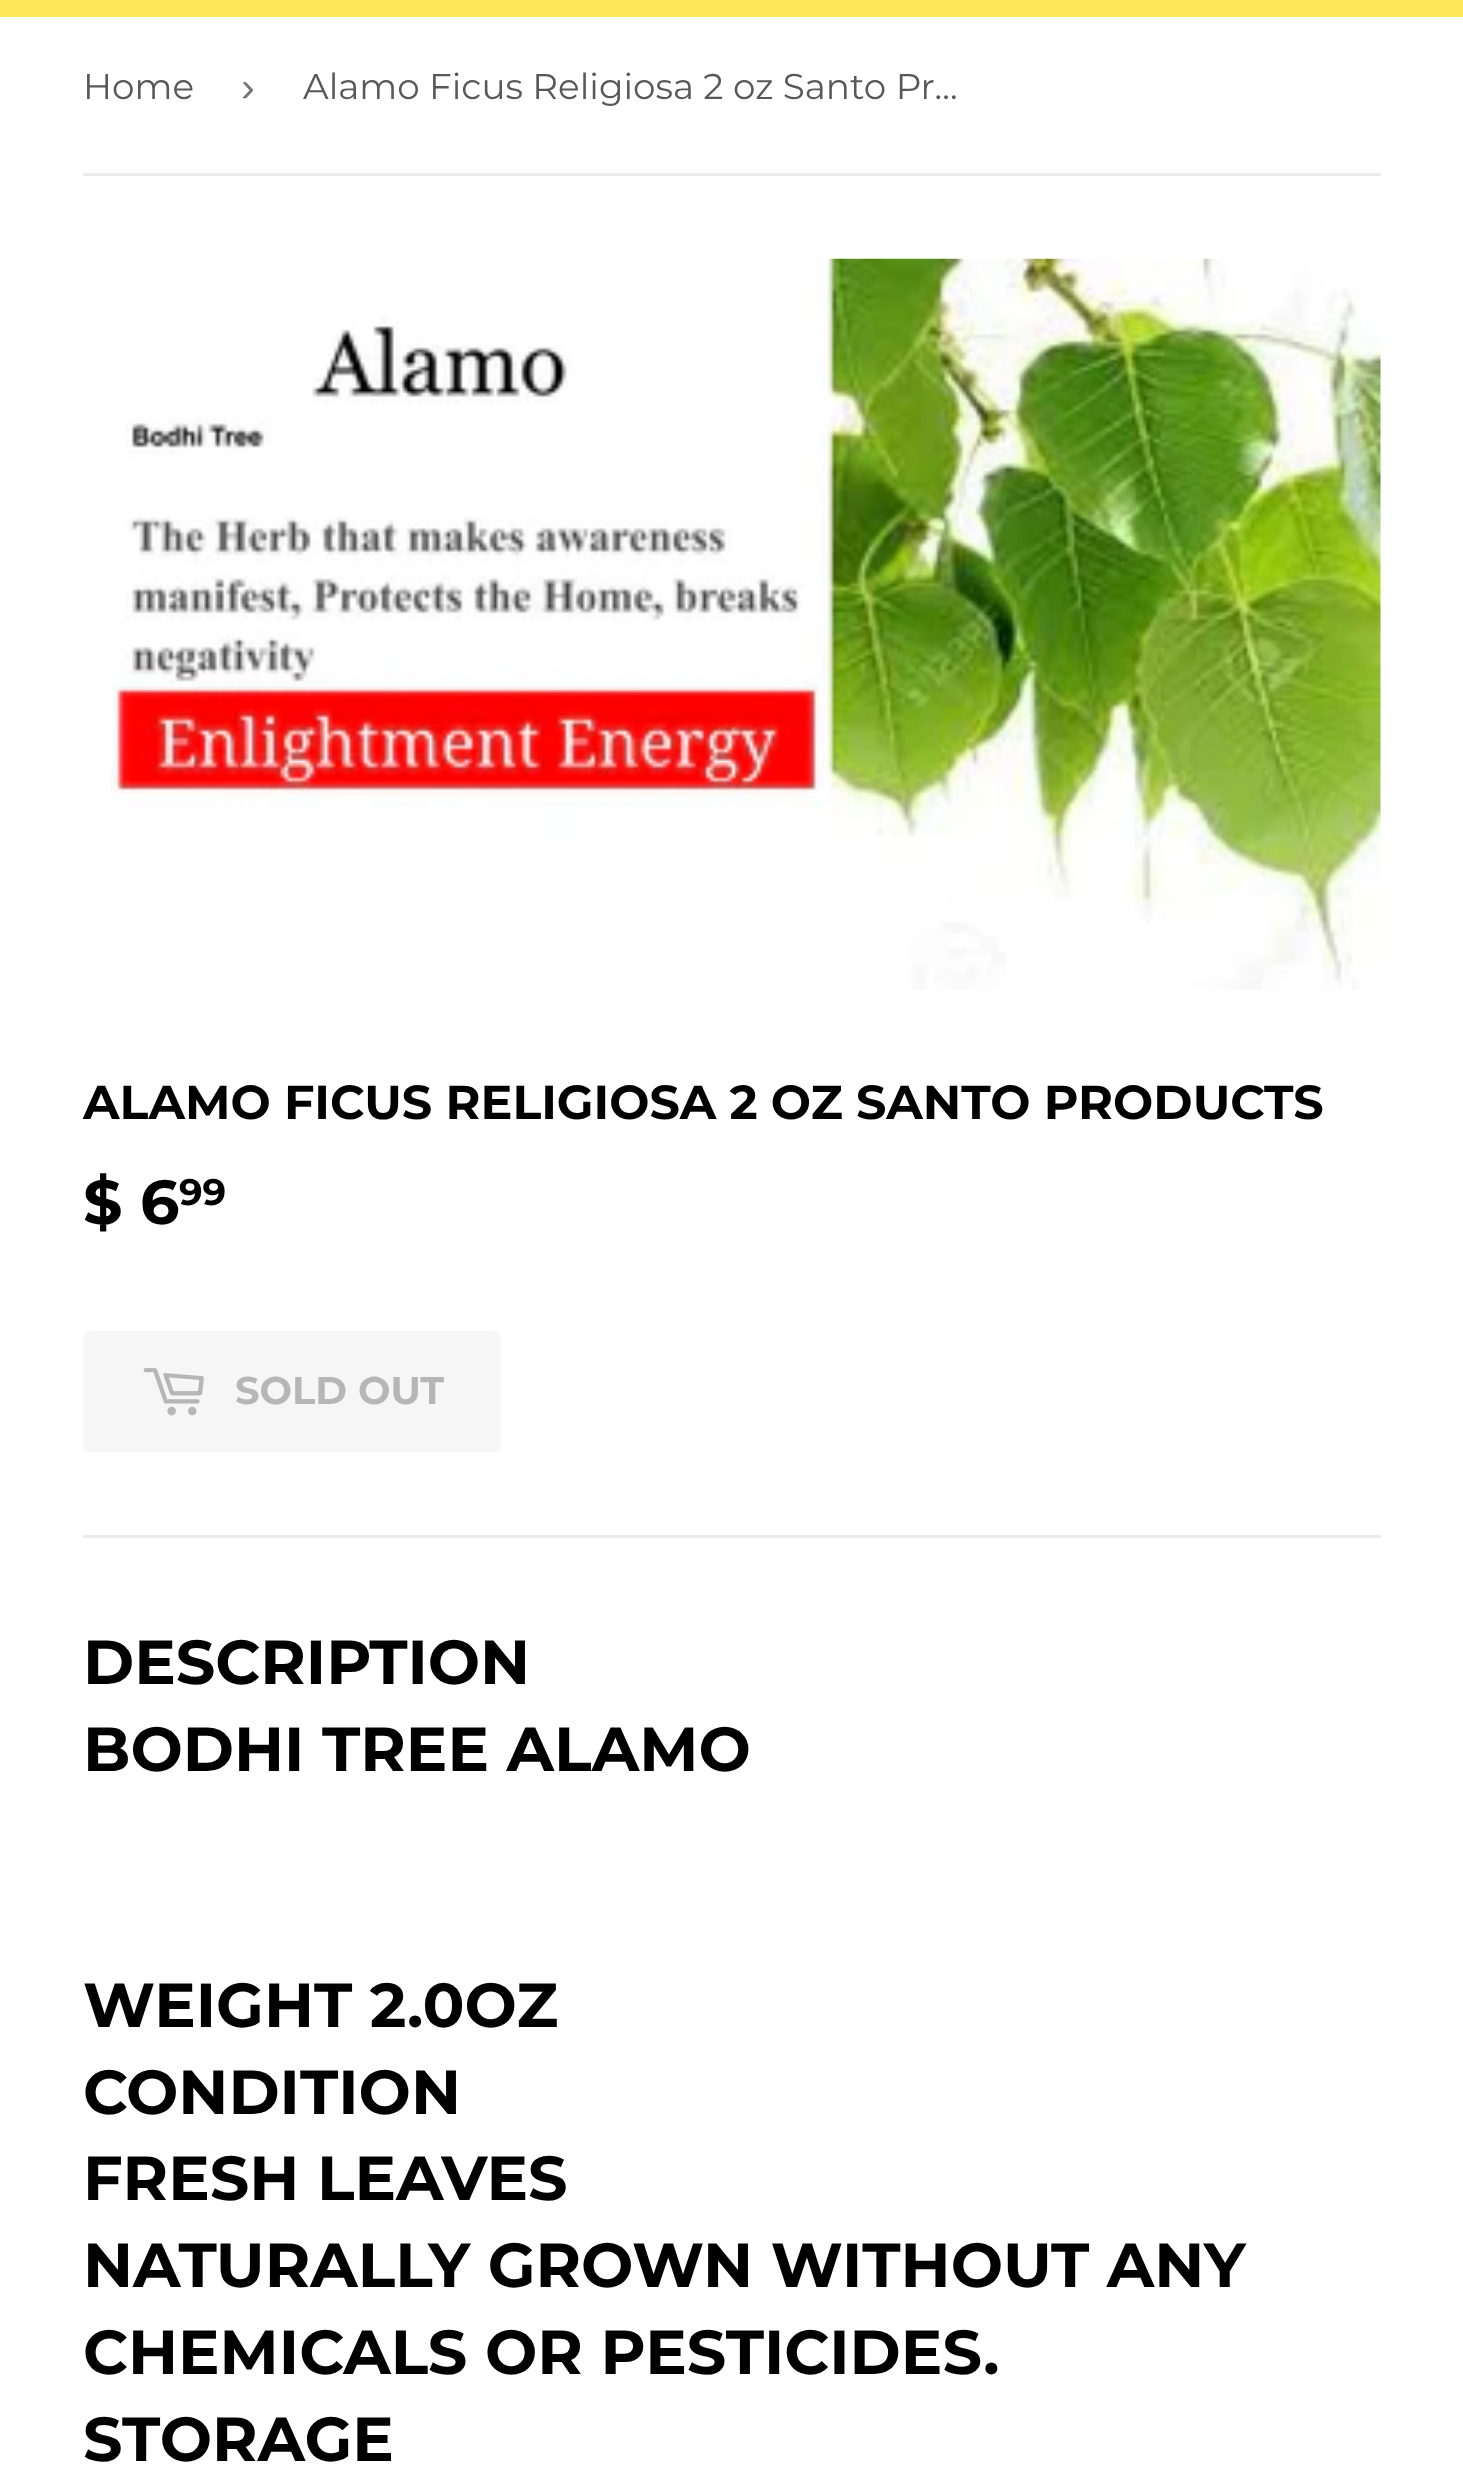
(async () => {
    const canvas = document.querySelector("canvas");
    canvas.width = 1463;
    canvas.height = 2489;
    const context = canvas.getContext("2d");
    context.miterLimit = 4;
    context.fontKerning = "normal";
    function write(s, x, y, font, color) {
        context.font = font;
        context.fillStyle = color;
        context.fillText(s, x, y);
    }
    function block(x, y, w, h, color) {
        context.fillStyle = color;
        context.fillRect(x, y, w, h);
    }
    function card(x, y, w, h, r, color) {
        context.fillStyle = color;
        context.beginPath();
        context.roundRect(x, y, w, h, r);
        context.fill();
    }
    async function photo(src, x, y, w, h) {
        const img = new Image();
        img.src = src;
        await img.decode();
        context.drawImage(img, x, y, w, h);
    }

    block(0, 0, 1463, 2489, "rgb(255, 255, 255)");
    block(0, 0, 1463, 17, "rgb(255, 233, 88)");
    block(83, 173, 1298, 3, "rgb(236, 236, 236)");
    write("Home", 83, 99, "35.75px Montserrat", "rgb(88, 88, 88)");
    write("›", 241, 101, "41px Liberation Sans", "rgb(118, 118, 118)");
    write("Alamo Ficus Religiosa 2 oz Santo Pr…", 303, 99, "35.75px Montserrat", "rgb(88, 88, 88)");
    await photo("media/1.png", 110, 258, 1271, 732);
    context.wordSpacing = "-0.25px";
    write("ALAMO FICUS RELIGIOSA 2 OZ SANTO PRODUCTS", 83, 1119, "bold 47.65px Montserrat", "rgb(0, 0, 0)");
    context.wordSpacing = "0px";
    write("$ 6", 83, 1224, "bold 62px Montserrat", "rgb(0, 0, 0)");
    write("99", 179, 1205, "bold 37px Montserrat", "rgb(0, 0, 0)");
    card(83, 1331, 418, 121, 6, "rgb(246, 246, 246)");
    await photo("media/2.png", 143, 1368, 61, 48);
    write("SOLD OUT", 235, 1404, "bold 38.5px Montserrat", "rgb(182, 182, 182)");
    block(83, 1535, 1298, 3, "rgb(236, 236, 236)");
    write("DESCRIPTION", 83, 1684, "bold 62px Montserrat", "rgb(0, 0, 0)");
    write("BODHI TREE ALAMO", 83, 1771, "bold 62px Montserrat", "rgb(0, 0, 0)");
    write("WEIGHT 2.0OZ", 83, 2027, "bold 62px Montserrat", "rgb(0, 0, 0)");
    write("CONDITION", 83, 2114, "bold 62px Montserrat", "rgb(0, 0, 0)");
    write("FRESH LEAVES", 83, 2200, "bold 62px Montserrat", "rgb(0, 0, 0)");
    write("NATURALLY GROWN WITHOUT ANY", 83, 2287, "bold 62px Montserrat", "rgb(0, 0, 0)");
    write("CHEMICALS OR PESTICIDES.", 83, 2374, "bold 62px Montserrat", "rgb(0, 0, 0)");
    write("STORAGE", 83, 2461, "bold 62px Montserrat", "rgb(0, 0, 0)");
})();
